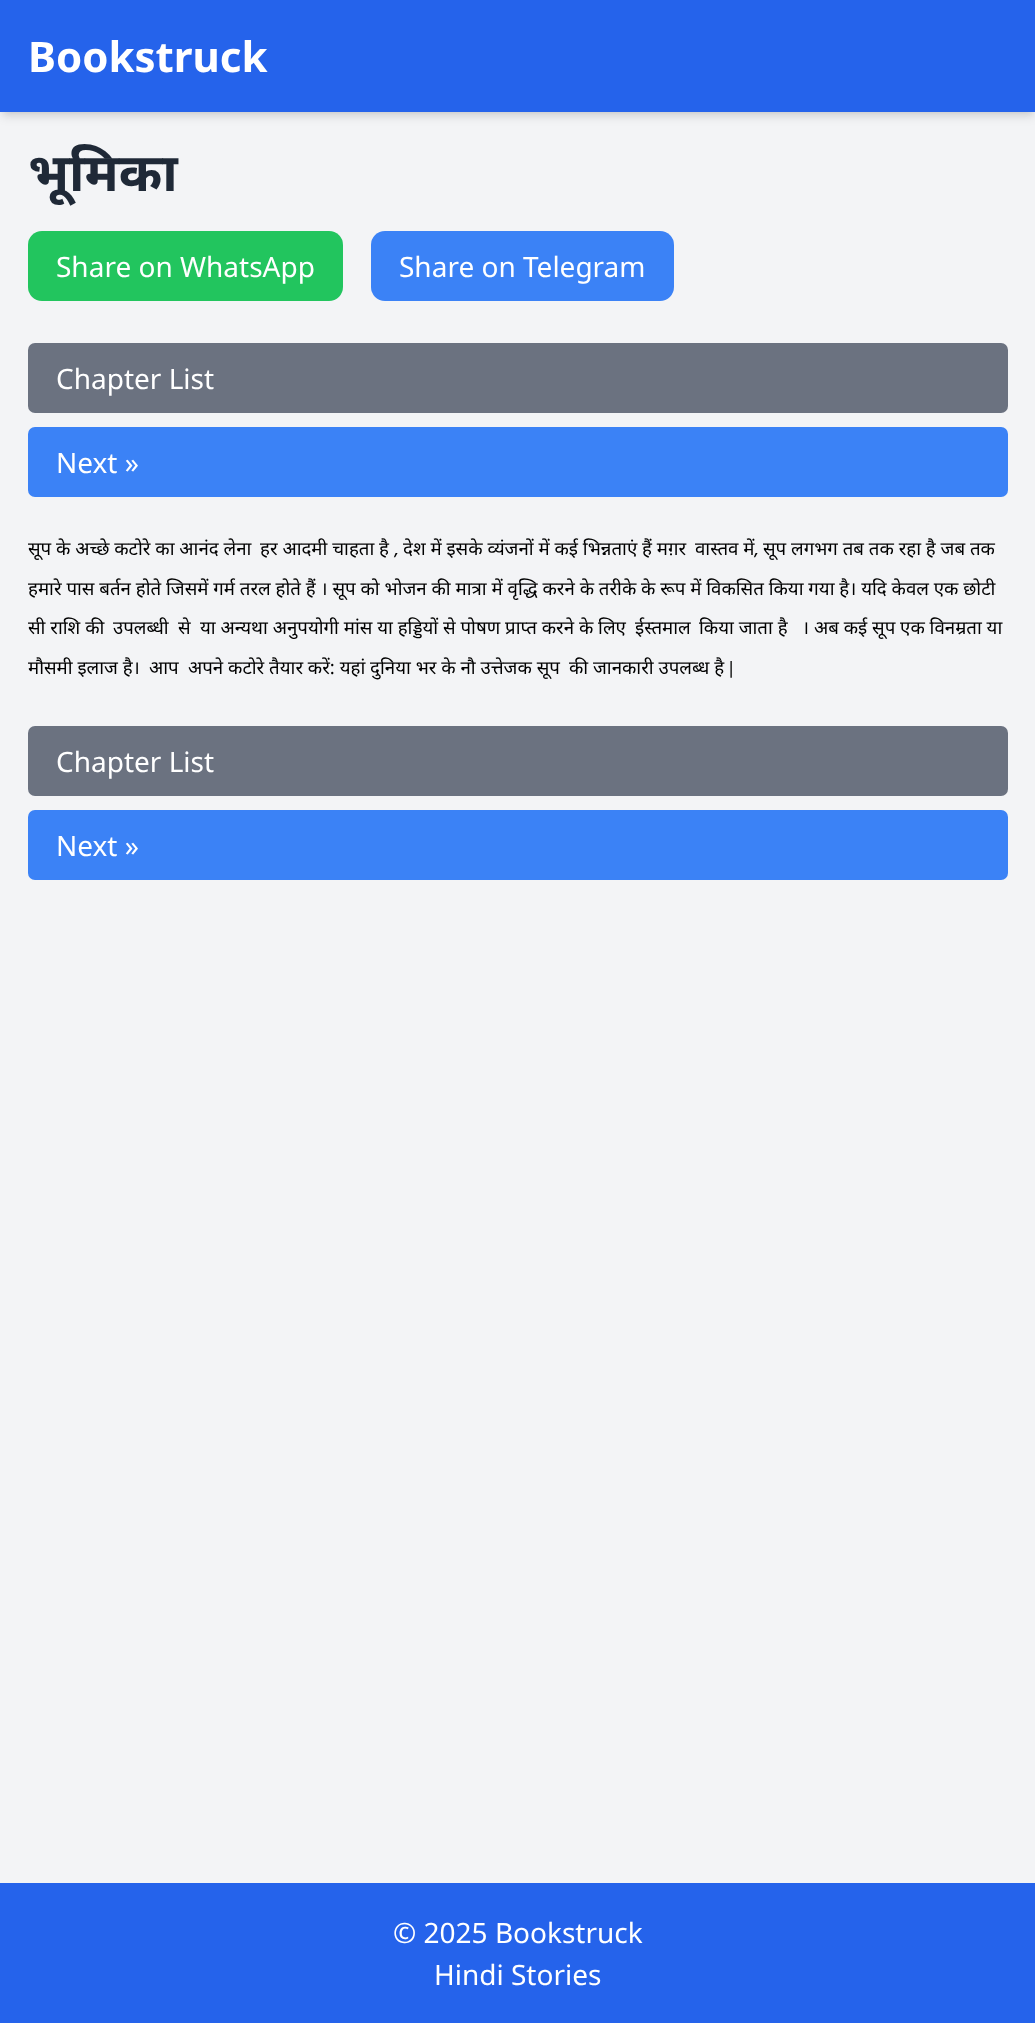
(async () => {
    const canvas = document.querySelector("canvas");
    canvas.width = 1035;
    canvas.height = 2023;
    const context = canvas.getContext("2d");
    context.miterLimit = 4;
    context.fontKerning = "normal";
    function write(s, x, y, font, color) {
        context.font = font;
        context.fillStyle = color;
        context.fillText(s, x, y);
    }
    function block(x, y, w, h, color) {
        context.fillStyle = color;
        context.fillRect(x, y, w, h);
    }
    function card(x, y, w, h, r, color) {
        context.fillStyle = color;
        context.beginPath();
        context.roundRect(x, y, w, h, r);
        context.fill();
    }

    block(0, 0, 1035, 2023, "rgb(243, 244, 246)");
    context.fillStyle = "rgba(0, 0, 0, 0.1)";
    context.filter = "blur(3.5px)";
    context.beginPath();
    context.rect(4, 7, 1029, 105);
    context.fill();
    context.filter = "none";
    context.filter = "blur(5px)";
    context.beginPath();
    context.rect(2, 9, 1032, 108);
    context.fill();
    context.filter = "none";
    block(0, 0, 1035, 112, "rgb(37, 99, 235)");
    write("Bookstruck", 28, 72, "bold 42px Noto Sans", "rgb(255, 255, 255)");
    write("भूमिका", 28, 191, "bold 52.5px Noto Sans", "rgb(31, 41, 55)");
    card(28, 231, 315, 70, 14, "rgb(34, 197, 94)");
    write("Share on WhatsApp", 56, 277, "28px Noto Sans", "rgb(255, 255, 255)");
    card(371, 231, 303, 70, 14, "rgb(59, 130, 246)");
    write("Share on Telegram", 399, 277, "28px Noto Sans", "rgb(255, 255, 255)");
    card(28, 343, 980, 70, 7, "rgb(107, 114, 128)");
    write("Chapter List", 56, 389, "28px Noto Sans", "rgb(255, 255, 255)");
    card(28, 427, 980, 70, 7, "rgb(59, 130, 246)");
    write("Next »", 56, 473, "28px Noto Sans", "rgb(255, 255, 255)");
    write("सूप के अच्छे कटोरे का आनंद लेना", 28, 555, "18.67px Noto Sans", "rgb(0, 0, 0)");
    write("हर आदमी चाहता है", 260, 555, "18.67px Noto Sans", "rgb(0, 0, 0)");
    write(",", 394, 555, "18.67px Hind", "rgb(0, 0, 0)");
    write("देश में इसके व्यंजनों में कई भिन्नताएं हैं मग़र", 403, 555, "18.67px Noto Sans", "rgb(0, 0, 0)");
    write("वास्तव में", 695, 555, "18.67px Noto Sans", "rgb(0, 0, 0)");
    write(",", 754, 555, "18.67px Hind", "rgb(0, 0, 0)");
    write("सूप लगभग तब तक रहा है जब तक", 763, 555, "18.67px Noto Sans", "rgb(0, 0, 0)");
    write("हमारे पास बर्तन होते जिसमें गर्म तरल होते हैं । सूप को भोजन की मात्रा में वृद्धि करने के तरीके के रूप में विकसित किया गया है। यदि केवल एक छोटी", 28, 595, "18.67px Noto Sans", "rgb(0, 0, 0)");
    write("सी राशि की", 28, 634, "18.67px Noto Sans", "rgb(0, 0, 0)");
    write("उपलब्धी", 113, 634, "18.67px Noto Sans", "rgb(0, 0, 0)");
    write("से", 178, 634, "18.67px Noto Sans", "rgb(0, 0, 0)");
    write("या अन्यथा अनुपयोगी मांस या हड्डियों से पोषण प्राप्त करने के लिए", 200, 634, "18.67px Noto Sans", "rgb(0, 0, 0)");
    write("ईस्तमाल", 635, 634, "18.67px Noto Sans", "rgb(0, 0, 0)");
    write("किया जाता है", 699, 634, "18.67px Noto Sans", "rgb(0, 0, 0)");
    write("। अब कई सूप एक विनम्रता या", 802, 634, "18.67px Noto Sans", "rgb(0, 0, 0)");
    write("मौसमी इलाज है।", 28, 674, "18.67px Noto Sans", "rgb(0, 0, 0)");
    write("आप", 149, 674, "18.67px Noto Sans", "rgb(0, 0, 0)");
    write("अपने कटोरे तैयार करें: यहां दुनिया भर के नौ उत्तेजक सूप", 188, 674, "18.67px Noto Sans", "rgb(0, 0, 0)");
    write("की जानकारी उपलब्ध है", 569, 674, "18.67px Noto Sans", "rgb(0, 0, 0)");
    write("|", 729, 674, "18.67px Hind", "rgb(0, 0, 0)");
    card(28, 726, 980, 70, 7, "rgb(107, 114, 128)");
    write("Chapter List", 56, 772, "28px Noto Sans", "rgb(255, 255, 255)");
    card(28, 810, 980, 70, 7, "rgb(59, 130, 246)");
    write("Next »", 56, 856, "28px Noto Sans", "rgb(255, 255, 255)");
    block(0, 1883, 1035, 140, "rgb(37, 99, 235)");
    write("© 2025 Bookstruck", 393, 1943, "28px Noto Sans", "rgb(255, 255, 255)");
    write("Hindi Stories", 434, 1985, "28px Noto Sans", "rgb(255, 255, 255)");
})();
